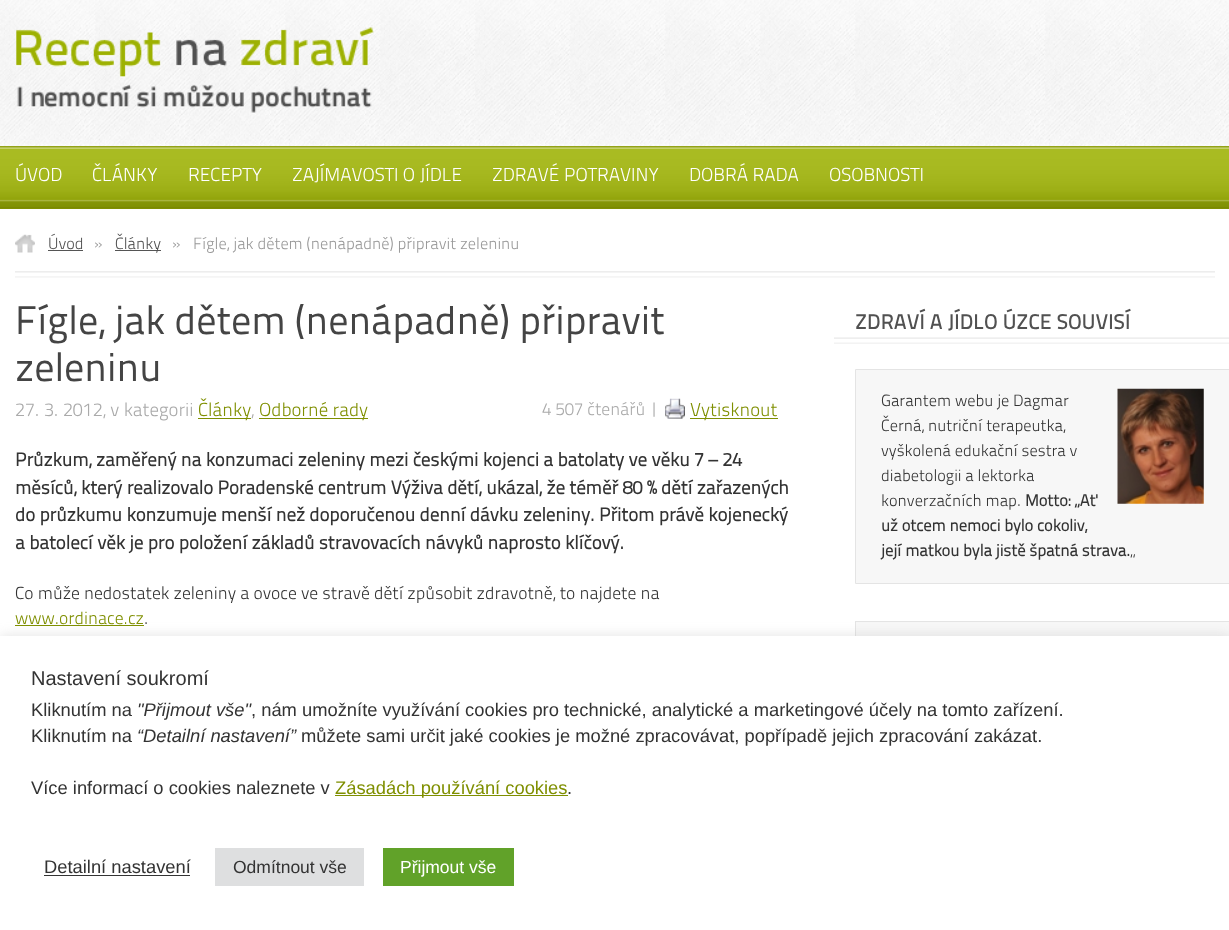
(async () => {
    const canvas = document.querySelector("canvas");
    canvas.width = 1229;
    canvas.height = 930;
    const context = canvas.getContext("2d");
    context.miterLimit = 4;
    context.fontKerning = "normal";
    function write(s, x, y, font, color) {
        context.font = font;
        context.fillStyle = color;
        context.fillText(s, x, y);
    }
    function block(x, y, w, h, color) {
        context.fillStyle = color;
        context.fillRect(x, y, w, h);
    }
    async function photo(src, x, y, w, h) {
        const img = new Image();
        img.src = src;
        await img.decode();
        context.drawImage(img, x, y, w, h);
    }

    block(0, 0, 1229, 930, "rgb(255, 255, 255)");
    await photo("media/1.png", 0, 0, 1229, 146);
    await photo("media/2.png", 16, 27, 358, 87);
    block(0, 146, 1229, 63, "rgb(157, 177, 2)");
    await photo("media/3.png", 0, 146, 1229, 63);
    write("ÚVOD", 15, 181, "300 18.75px 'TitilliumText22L'", "rgb(255, 255, 255)");
    write("ČLÁNKY", 92, 181, "300 18.75px 'TitilliumText22L'", "rgb(255, 255, 255)");
    write("RECEPTY", 188, 181, "300 18.75px 'TitilliumText22L'", "rgb(255, 255, 255)");
    write("ZAJÍMAVOSTI O JÍDLE", 292, 181, "300 18.75px 'TitilliumText22L'", "rgb(255, 255, 255)");
    write("ZDRAVÉ POTRAVINY", 492, 181, "300 18.75px 'TitilliumText22L'", "rgb(255, 255, 255)");
    write("DOBRÁ RADA", 689, 181, "300 18.75px 'TitilliumText22L'", "rgb(255, 255, 255)");
    write("OSOBNOSTI", 829, 181, "300 18.75px 'TitilliumText22L'", "rgb(255, 255, 255)");
    await photo("media/4.png", 15, 271, 1200, 7);
    await photo("media/5.png", 15, 234, 20, 19);
    write("Úvod", 48, 249, "300 16.25px 'TitilliumText22L'", "rgb(81, 81, 81)");
    block(48, 250, 35, 1, "rgb(85, 85, 85)");
    write("»", 94, 249, "300 16.25px 'TitilliumText22L'", "rgb(153, 153, 153)");
    block(115, 250, 46, 1, "rgb(85, 85, 85)");
    write("Články", 115, 249, "300 16.25px 'TitilliumText22L'", "rgb(81, 81, 81)");
    write("»", 172, 249, "300 16.25px 'TitilliumText22L'", "rgb(153, 153, 153)");
    write("Fígle, jak dětem (nenápadně) připravit zeleninu", 193, 249, "300 16.25px 'TitilliumText22L'", "rgb(153, 153, 153)");
    write("Fígle, jak dětem (nenápadně) připravit", 15, 334, "40px 'TitilliumText22L'", "rgb(68, 68, 68)");
    write("zeleninu", 15, 381, "40px 'TitilliumText22L'", "rgb(68, 68, 68)");
    write("27. 3. 2012, v kategorii", 15, 416, "300 18.75px 'TitilliumText22L'", "rgb(170, 170, 170)");
    block(198, 418, 53, 1, "rgb(127, 143, 0)");
    write("Články", 198, 416, "300 18.75px 'TitilliumText22L'", "rgb(127, 143, 0)");
    write(",", 251, 416, "300 18.75px 'TitilliumText22L'", "rgb(170, 170, 170)");
    block(259, 418, 109, 1, "rgb(127, 143, 0)");
    write("Odborné rady", 259, 416, "300 18.75px 'TitilliumText22L'", "rgb(127, 143, 0)");
    await photo("media/6.png", 665, 398, 20, 21);
    block(690, 418, 88, 1, "rgb(127, 143, 0)");
    write("Vytisknout", 690, 416, "300 18.75px 'TitilliumText22L'", "rgb(127, 143, 0)");
    write("4 507 čtenářů |", 542, 415, "300 17.5px 'TitilliumText22L'", "rgb(170, 170, 170)");
    write("Průzkum, zaměřený na konzumaci zeleniny mezi českými kojenci a batolaty ve věku 7 – 24", 15, 466, "bold 18.75px 'TitilliumText22L'", "rgb(51, 51, 51)");
    write("měsíců, který realizovalo Poradenské centrum Výživa dětí, ukázal, že téměř 80 % dětí zařazených", 15, 494, "bold 18.75px 'TitilliumText22L'", "rgb(51, 51, 51)");
    write("do průzkumu konzumuje menší než doporučenou denní dávku zeleniny. Přitom právě kojenecký", 15, 521, "bold 18.75px 'TitilliumText22L'", "rgb(51, 51, 51)");
    write("a batolecí věk je pro položení základů stravovacích návyků naprosto klíčový.", 15, 549, "bold 18.75px 'TitilliumText22L'", "rgb(51, 51, 51)");
    write("Co může nedostatek zeleniny a ovoce ve stravě dětí způsobit zdravotně, to najdete na", 15, 599, "300 17.5px 'TitilliumText22L'", "rgb(51, 51, 51)");
    write("www.ordinace.cz", 15, 624, "300 17.5px 'TitilliumText22L'", "rgb(127, 143, 0)");
    block(15, 625, 129, 1, "rgb(127, 143, 0)");
    write(".", 144, 624, "300 17.5px 'TitilliumText22L'", "rgb(51, 51, 51)");
    await photo("media/7.png", 834, 337, 395, 7);
    write("ZDRAVÍ A JÍDLO ÚZCE SOUVISÍ", 855, 329, "500 21.25px 'TitilliumText22L'", "rgb(81, 81, 81)");
    context.fillStyle = "rgb(247, 247, 247)";
    context.beginPath();
    context.rect(855.5, 369.5, 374, 214);
    context.fill();
    context.strokeStyle = "rgb(228, 228, 228)";
    context.stroke();
    write("Garantem webu je Dagmar", 881, 406, "300 16.25px 'TitilliumText22L'", "rgb(51, 51, 51)");
    await photo("media/8.png", 1117, 388, 87, 116);
    write("Černá, nutriční terapeutka,", 881, 431, "300 16.25px 'TitilliumText22L'", "rgb(51, 51, 51)");
    write("vyškolená edukační sestra v", 881, 456, "300 16.25px 'TitilliumText22L'", "rgb(51, 51, 51)");
    write("diabetologii a lektorka", 881, 481, "300 16.25px 'TitilliumText22L'", "rgb(51, 51, 51)");
    write("konverzačních map.", 881, 506, "300 16.25px 'TitilliumText22L'", "rgb(51, 51, 51)");
    write("Motto: „Ať", 1025, 506, "bold 16.25px 'TitilliumText22L'", "rgb(51, 51, 51)");
    write("už otcem nemoci bylo cokoliv,", 881, 531, "bold 16.25px 'TitilliumText22L'", "rgb(51, 51, 51)");
    write("její matkou byla jistě špatná strava.", 881, 556, "bold 16.25px 'TitilliumText22L'", "rgb(51, 51, 51)");
    write("„", 1130, 556, "300 16.25px 'TitilliumText22L'", "rgb(51, 51, 51)");
    block(856, 622, 373, 14, "rgb(247, 247, 247)");
    context.strokeRect(855.5, 621.5, 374, 243);
    context.fillStyle = "rgba(172, 171, 171, 0.3)";
    context.filter = "blur(6px)";
    context.beginPath();
    context.rect(0, 635, 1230, 294);
    context.fill();
    context.filter = "none";
    block(0, 636, 1229, 294, "rgb(255, 255, 255)");
    write("Nastavení soukromí", 31, 685, "20px Liberation Sans", "rgb(51, 51, 51)");
    write("Kliknutím na", 31, 716, "18.35px Liberation Sans", "rgb(51, 51, 51)");
    write("\"Přijmout vše\"", 137, 716, "italic 18.35px Liberation Sans", "rgb(51, 51, 51)");
    write(", nám umožníte využívání cookies pro technické, analytické a marketingové účely na tomto zařízení.", 251, 716, "18.35px Liberation Sans", "rgb(51, 51, 51)");
    write("Kliknutím na", 31, 742, "18.35px Liberation Sans", "rgb(51, 51, 51)");
    write("“Detailní nastavení”", 137, 742, "italic 18.35px Liberation Sans", "rgb(51, 51, 51)");
    write("můžete sami určit jaké cookies je možné zpracovávat, popřípadě jejich zpracování zakázat.", 301, 742, "18.35px Liberation Sans", "rgb(51, 51, 51)");
    write("Více informací o cookies naleznete v", 31, 794, "18.35px Liberation Sans", "rgb(51, 51, 51)");
    block(335, 795, 233, 1, "rgb(127, 143, 0)");
    write("Zásadách používání cookies", 335, 794, "18.35px Liberation Sans", "rgb(127, 143, 0)");
    write(".", 567, 794, "18.35px Liberation Sans", "rgb(51, 51, 51)");
    write("Detailní nastavení", 44, 873, "18.35px Liberation Sans", "rgb(51, 51, 51)");
    block(44, 875, 146, 1, "rgb(51, 51, 51)");
    block(215, 848, 149, 38, "rgb(222, 223, 224)");
    write("Odmítnout vše", 233, 873, "17.5px Liberation Sans", "rgb(51, 51, 51)");
    block(383, 848, 131, 38, "rgb(97, 162, 41)");
    write("Přijmout vše", 400, 873, "17.5px Liberation Sans", "rgb(255, 255, 255)");
})();
